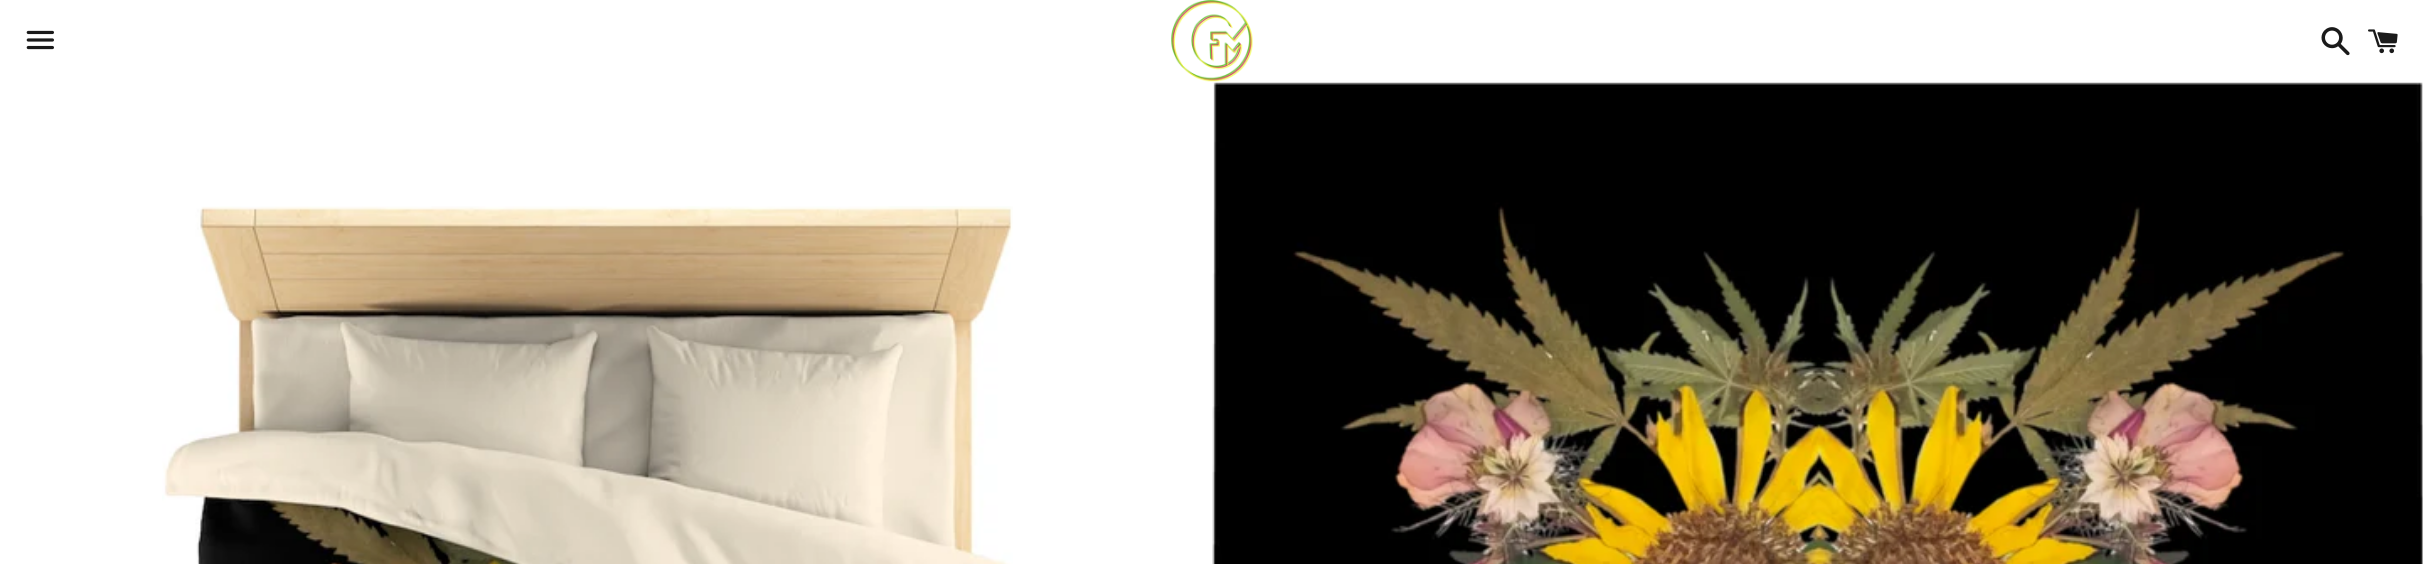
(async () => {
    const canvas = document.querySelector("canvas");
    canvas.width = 2423;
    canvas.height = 564;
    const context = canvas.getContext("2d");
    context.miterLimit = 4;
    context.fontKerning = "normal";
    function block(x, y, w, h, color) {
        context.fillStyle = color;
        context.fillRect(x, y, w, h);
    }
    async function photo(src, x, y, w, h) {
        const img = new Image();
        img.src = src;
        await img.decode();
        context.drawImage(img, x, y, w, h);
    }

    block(0, 0, 2423, 564, "rgb(255, 255, 255)");
    await photo("media/1.png", 26, 30, 28, 20);
    await photo("media/2.png", 1171, 0, 82, 82);
    await photo("media/3.png", 2321, 27, 29, 29);
    await photo("media/4.png", 2368, 29, 30, 25);
    await photo("media/5.png", 162, 206, 851, 358);
    await photo("media/6.png", 1212, 82, 1211, 482);
})();
